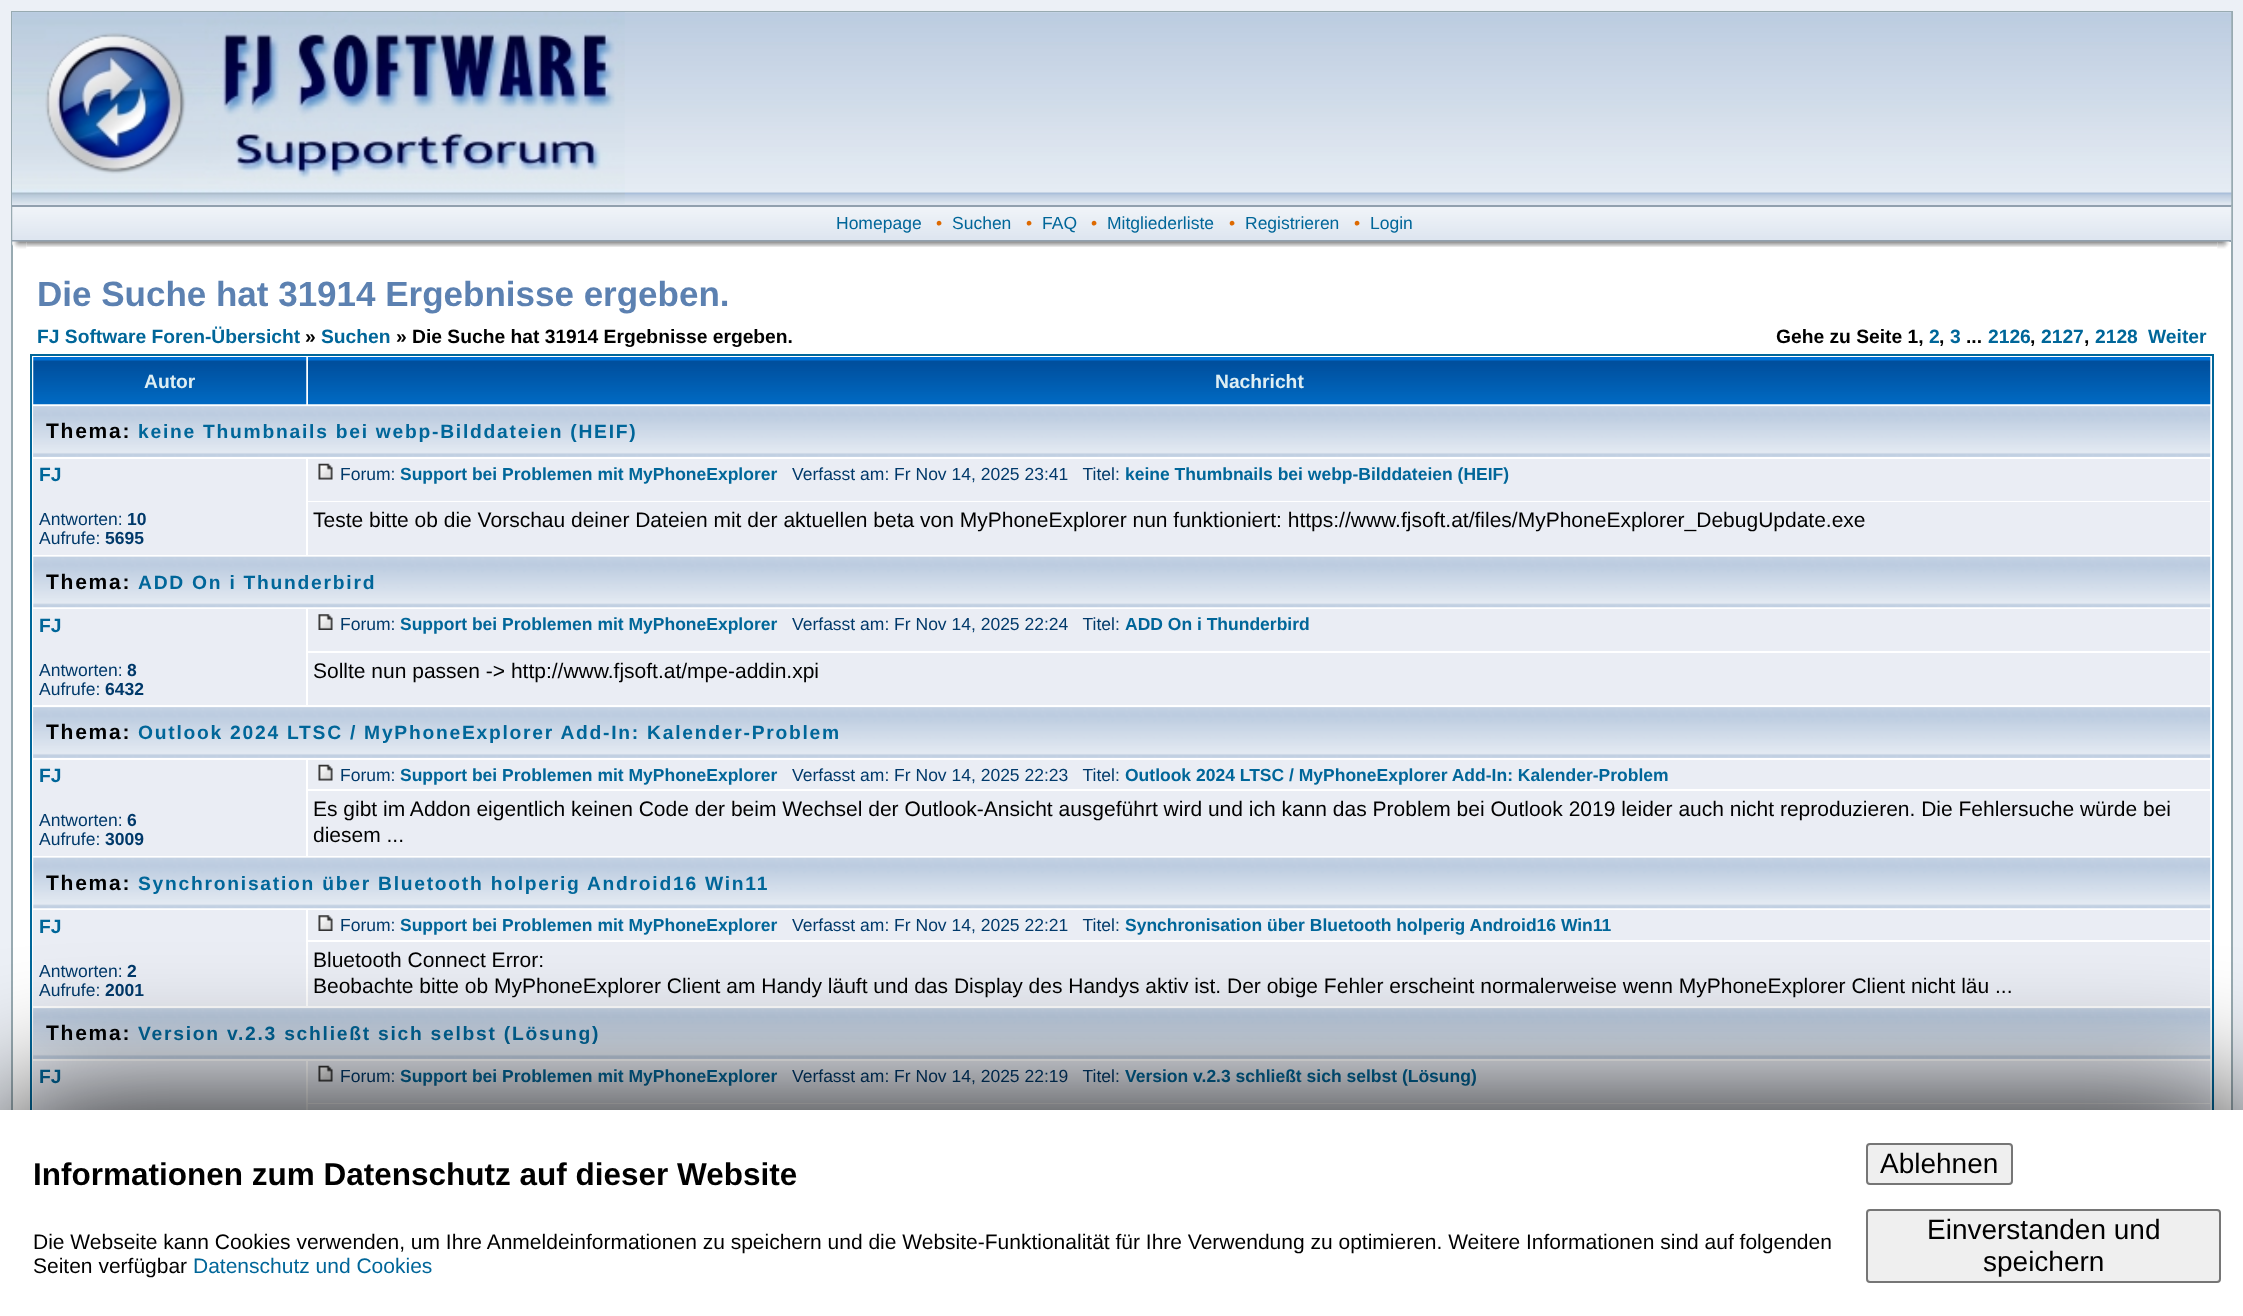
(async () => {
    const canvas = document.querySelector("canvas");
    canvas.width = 2243;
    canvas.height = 1316;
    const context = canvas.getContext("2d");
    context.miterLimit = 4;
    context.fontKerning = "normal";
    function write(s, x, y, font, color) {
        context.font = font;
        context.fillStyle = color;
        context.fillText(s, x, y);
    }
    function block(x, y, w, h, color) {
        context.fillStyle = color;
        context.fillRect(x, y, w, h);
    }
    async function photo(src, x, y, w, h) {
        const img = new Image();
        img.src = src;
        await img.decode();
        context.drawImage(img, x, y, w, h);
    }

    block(0, 0, 2243, 1316, "rgb(236, 240, 246)");
    block(13, 242, 2218, 868, "rgb(255, 255, 255)");
    context.strokeStyle = "rgb(152, 170, 177)";
    context.lineWidth = 2;
    context.strokeRect(12, 12, 2220, 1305);
    block(12, 12, 2219, 193, "rgb(219, 227, 238)");
    await photo("media/1.png", 12, 12, 2220, 193);
    await photo("media/2.png", 12, 12, 613, 192);
    await photo("media/3.png", 12, 206, 2220, 36);
    block(12, 205, 2219, 2, "rgb(145, 160, 174)");
    block(12, 240, 2219, 2, "rgb(145, 160, 174)");
    write("Homepage", 836, 229, "17.5px Liberation Sans", "rgb(0, 102, 153)");
    write("•", 936, 229, "17.5px Liberation Sans", "rgb(221, 105, 0)");
    write("Suchen", 952, 229, "17.5px Liberation Sans", "rgb(0, 102, 153)");
    write("•", 1026, 229, "17.5px Liberation Sans", "rgb(221, 105, 0)");
    write("FAQ", 1042, 229, "17.5px Liberation Sans", "rgb(0, 102, 153)");
    write("•", 1091, 229, "17.5px Liberation Sans", "rgb(221, 105, 0)");
    write("Mitgliederliste", 1107, 229, "17.5px Liberation Sans", "rgb(0, 102, 153)");
    write("•", 1229, 229, "17.5px Liberation Sans", "rgb(221, 105, 0)");
    write("Registrieren", 1245, 229, "17.5px Liberation Sans", "rgb(0, 102, 153)");
    write("•", 1354, 229, "17.5px Liberation Sans", "rgb(221, 105, 0)");
    write("Login", 1370, 229, "17.5px Liberation Sans", "rgb(0, 102, 153)");
    await photo("media/4.png", 12, 241, 15, 8);
    await photo("media/5.png", 26, 241, 2192, 6);
    await photo("media/6.png", 2217, 241, 13, 8);
    write("Die Suche hat 31914 Ergebnisse ergeben.", 37, 306, "bold 35px Liberation Sans", "rgb(92, 129, 177)");
    write("FJ Software Foren-Übersicht", 37, 343, "bold 19.25px Liberation Sans", "rgb(0, 102, 153)");
    write("»", 305, 343, "bold 19.25px Liberation Sans", "rgb(0, 0, 0)");
    write("Suchen", 321, 343, "bold 19.25px Liberation Sans", "rgb(0, 102, 153)");
    write("» Die Suche hat 31914 Ergebnisse ergeben.", 396, 343, "bold 19.25px Liberation Sans", "rgb(0, 0, 0)");
    write("Gehe zu Seite 1,", 1776, 343, "bold 19.25px Liberation Sans", "rgb(0, 0, 0)");
    write("2", 1929, 343, "bold 19.25px Liberation Sans", "rgb(0, 102, 153)");
    write(",", 1939, 343, "bold 19.25px Liberation Sans", "rgb(0, 0, 0)");
    write("3", 1950, 343, "bold 19.25px Liberation Sans", "rgb(0, 102, 153)");
    write("...", 1966, 343, "bold 19.25px Liberation Sans", "rgb(0, 0, 0)");
    write("2126", 1988, 343, "bold 19.25px Liberation Sans", "rgb(0, 102, 153)");
    write(",", 2030, 343, "bold 19.25px Liberation Sans", "rgb(0, 0, 0)");
    write("2127", 2041, 343, "bold 19.25px Liberation Sans", "rgb(0, 102, 153)");
    write(",", 2084, 343, "bold 19.25px Liberation Sans", "rgb(0, 0, 0)");
    write("2128", 2095, 343, "bold 19.25px Liberation Sans", "rgb(0, 102, 153)");
    write("Weiter", 2148, 343, "bold 19.25px Liberation Sans", "rgb(0, 102, 153)");
    context.strokeStyle = "rgb(0, 102, 153)";
    context.strokeRect(31, 355, 2182, 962);
    await photo("media/7.png", 33, 357, 274, 48);
    write("Autor", 144, 388, "bold 19.25px Liberation Sans", "rgb(222, 238, 243)");
    await photo("media/8.png", 308, 357, 1903, 48);
    write("Nachricht", 1215, 388, "bold 19.25px Liberation Sans", "rgb(222, 238, 243)");
    block(33, 406, 2177, 51, "rgb(217, 226, 236)");
    await photo("media/9.png", 33, 406, 2178, 51);
    context.letterSpacing = "1.75px";
    write("Thema:", 46, 438, "bold 21px Liberation Sans", "rgb(0, 0, 0)");
    write("keine Thumbnails bei webp-Bilddateien (HEIF)", 138, 438, "bold 19.25px Liberation Sans", "rgb(0, 102, 153)");
    block(33, 459, 273, 96, "rgb(234, 237, 244)");
    context.letterSpacing = "0px";
    write("FJ", 39, 481, "bold 19.25px Liberation Sans", "rgb(0, 102, 153)");
    write("Antworten:", 39, 525, "17.5px Liberation Sans", "rgb(0, 57, 106)");
    write("10", 127, 525, "bold 17.5px Liberation Sans", "rgb(0, 57, 106)");
    write("Aufrufe:", 39, 544, "17.5px Liberation Sans", "rgb(0, 57, 106)");
    write("5695", 105, 544, "bold 17.5px Liberation Sans", "rgb(0, 57, 106)");
    block(308, 459, 1902, 42, "rgb(234, 237, 244)");
    await photo("media/10.png", 318, 463, 15, 17);
    write("Forum:", 340, 480, "17.5px Liberation Sans", "rgb(0, 57, 106)");
    write("Support bei Problemen mit MyPhoneExplorer", 400, 480, "bold 17.5px Liberation Sans", "rgb(0, 102, 153)");
    write("Verfasst am: Fr Nov 14, 2025 23:41   Titel:", 792, 480, "17.5px Liberation Sans", "rgb(0, 57, 106)");
    write("keine Thumbnails bei webp-Bilddateien (HEIF)", 1125, 480, "bold 17.5px Liberation Sans", "rgb(0, 102, 153)");
    block(308, 502, 1902, 53, "rgb(234, 237, 244)");
    write("Teste bitte ob die Vorschau deiner Dateien mit der aktuellen beta von MyPhoneExplorer nun funktioniert: https://www.fjsoft.at/files/MyPhoneExplorer_DebugUpdate.exe", 313, 527, "21px Liberation Sans", "rgb(0, 0, 0)");
    await photo("media/11.png", 33, 556, 2178, 52);
    context.letterSpacing = "1.75px";
    write("Thema:", 46, 589, "bold 21px Liberation Sans", "rgb(0, 0, 0)");
    write("ADD On i Thunderbird", 138, 589, "bold 19.25px Liberation Sans", "rgb(0, 102, 153)");
    block(33, 609, 273, 96, "rgb(234, 237, 244)");
    context.letterSpacing = "0px";
    write("FJ", 39, 632, "bold 19.25px Liberation Sans", "rgb(0, 102, 153)");
    write("Antworten:", 39, 676, "17.5px Liberation Sans", "rgb(0, 57, 106)");
    write("8", 127, 676, "bold 17.5px Liberation Sans", "rgb(0, 57, 106)");
    write("Aufrufe:", 39, 695, "17.5px Liberation Sans", "rgb(0, 57, 106)");
    write("6432", 105, 695, "bold 17.5px Liberation Sans", "rgb(0, 57, 106)");
    block(308, 609, 1902, 42, "rgb(234, 237, 244)");
    await photo("media/12.png", 318, 614, 15, 16);
    write("Forum:", 340, 630, "17.5px Liberation Sans", "rgb(0, 57, 106)");
    write("Support bei Problemen mit MyPhoneExplorer", 400, 630, "bold 17.5px Liberation Sans", "rgb(0, 102, 153)");
    write("Verfasst am: Fr Nov 14, 2025 22:24   Titel:", 792, 630, "17.5px Liberation Sans", "rgb(0, 57, 106)");
    write("ADD On i Thunderbird", 1125, 630, "bold 17.5px Liberation Sans", "rgb(0, 102, 153)");
    block(308, 653, 1902, 52, "rgb(234, 237, 244)");
    write("Sollte nun passen -> http://www.fjsoft.at/mpe-addin.xpi", 313, 678, "21px Liberation Sans", "rgb(0, 0, 0)");
    block(33, 707, 2177, 51, "rgb(217, 226, 236)");
    await photo("media/9.png", 33, 707, 2178, 51);
    context.letterSpacing = "1.75px";
    write("Thema:", 46, 739, "bold 21px Liberation Sans", "rgb(0, 0, 0)");
    write("Outlook 2024 LTSC / MyPhoneExplorer Add-In: Kalender-Problem", 138, 739, "bold 19.25px Liberation Sans", "rgb(0, 102, 153)");
    block(33, 760, 273, 96, "rgb(234, 237, 244)");
    context.letterSpacing = "0px";
    write("FJ", 39, 782, "bold 19.25px Liberation Sans", "rgb(0, 102, 153)");
    write("Antworten:", 39, 826, "17.5px Liberation Sans", "rgb(0, 57, 106)");
    write("6", 127, 826, "bold 17.5px Liberation Sans", "rgb(0, 57, 106)");
    write("Aufrufe:", 39, 845, "17.5px Liberation Sans", "rgb(0, 57, 106)");
    write("3009", 105, 845, "bold 17.5px Liberation Sans", "rgb(0, 57, 106)");
    block(308, 760, 1902, 29, "rgb(234, 237, 244)");
    await photo("media/10.png", 318, 764, 15, 17);
    write("Forum:", 340, 781, "17.5px Liberation Sans", "rgb(0, 57, 106)");
    write("Support bei Problemen mit MyPhoneExplorer", 400, 781, "bold 17.5px Liberation Sans", "rgb(0, 102, 153)");
    write("Verfasst am: Fr Nov 14, 2025 22:23   Titel:", 792, 781, "17.5px Liberation Sans", "rgb(0, 57, 106)");
    write("Outlook 2024 LTSC / MyPhoneExplorer Add-In: Kalender-Problem", 1125, 781, "bold 17.5px Liberation Sans", "rgb(0, 102, 153)");
    block(308, 791, 1902, 65, "rgb(234, 237, 244)");
    write("Es gibt im Addon eigentlich keinen Code der beim Wechsel der Outlook-Ansicht ausgeführt wird und ich kann das Problem bei Outlook 2019 leider auch nicht reproduzieren. Die Fehlersuche würde bei", 313, 816, "21px Liberation Sans", "rgb(0, 0, 0)");
    write("diesem ...", 313, 842, "21px Liberation Sans", "rgb(0, 0, 0)");
    await photo("media/11.png", 33, 857, 2178, 52);
    context.letterSpacing = "1.75px";
    write("Thema:", 46, 890, "bold 21px Liberation Sans", "rgb(0, 0, 0)");
    write("Synchronisation über Bluetooth holperig Android16 Win11", 138, 890, "bold 19.25px Liberation Sans", "rgb(0, 102, 153)");
    block(33, 910, 273, 96, "rgb(234, 237, 244)");
    context.letterSpacing = "0px";
    write("FJ", 39, 933, "bold 19.25px Liberation Sans", "rgb(0, 102, 153)");
    write("Antworten:", 39, 977, "17.5px Liberation Sans", "rgb(0, 57, 106)");
    write("2", 127, 977, "bold 17.5px Liberation Sans", "rgb(0, 57, 106)");
    write("Aufrufe:", 39, 996, "17.5px Liberation Sans", "rgb(0, 57, 106)");
    write("2001", 105, 996, "bold 17.5px Liberation Sans", "rgb(0, 57, 106)");
    block(308, 910, 1902, 30, "rgb(234, 237, 244)");
    await photo("media/12.png", 318, 915, 15, 16);
    write("Forum:", 340, 931, "17.5px Liberation Sans", "rgb(0, 57, 106)");
    write("Support bei Problemen mit MyPhoneExplorer", 400, 931, "bold 17.5px Liberation Sans", "rgb(0, 102, 153)");
    write("Verfasst am: Fr Nov 14, 2025 22:21   Titel:", 792, 931, "17.5px Liberation Sans", "rgb(0, 57, 106)");
    write("Synchronisation über Bluetooth holperig Android16 Win11", 1125, 931, "bold 17.5px Liberation Sans", "rgb(0, 102, 153)");
    block(308, 942, 1902, 64, "rgb(234, 237, 244)");
    write("Bluetooth Connect Error:", 313, 967, "21px Liberation Sans", "rgb(0, 0, 0)");
    write("Beobachte bitte ob MyPhoneExplorer Client am Handy läuft und das Display des Handys aktiv ist. Der obige Fehler erscheint normalerweise wenn MyPhoneExplorer Client nicht läu ...", 313, 993, "21px Liberation Sans", "rgb(0, 0, 0)");
    block(33, 1008, 2177, 51, "rgb(217, 226, 236)");
    await photo("media/9.png", 33, 1008, 2178, 51);
    context.letterSpacing = "1.75px";
    write("Thema:", 46, 1040, "bold 21px Liberation Sans", "rgb(0, 0, 0)");
    write("Version v.2.3 schließt sich selbst (Lösung)", 138, 1040, "bold 19.25px Liberation Sans", "rgb(0, 102, 153)");
    block(33, 1061, 273, 49, "rgb(234, 237, 244)");
    context.letterSpacing = "0px";
    write("FJ", 39, 1083, "bold 19.25px Liberation Sans", "rgb(0, 102, 153)");
    block(308, 1061, 1902, 42, "rgb(234, 237, 244)");
    await photo("media/10.png", 318, 1065, 15, 17);
    write("Forum:", 340, 1082, "17.5px Liberation Sans", "rgb(0, 57, 106)");
    write("Support bei Problemen mit MyPhoneExplorer", 400, 1082, "bold 17.5px Liberation Sans", "rgb(0, 102, 153)");
    write("Verfasst am: Fr Nov 14, 2025 22:19   Titel:", 792, 1082, "17.5px Liberation Sans", "rgb(0, 57, 106)");
    write("Version v.2.3 schließt sich selbst (Lösung)", 1125, 1082, "bold 17.5px Liberation Sans", "rgb(0, 102, 153)");
    block(308, 1104, 1902, 6, "rgb(234, 237, 244)");
    context.fillStyle = "rgb(0, 0, 0)";
    context.filter = "blur(70px)";
    context.beginPath();
    context.rect(0, 1110, 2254, 206);
    context.fill();
    context.filter = "none";
    block(0, 1110, 2243, 206, "rgb(255, 255, 255)");
    write("Informationen zum Datenschutz auf dieser Website", 33, 1185, "bold 31.5px Liberation Sans", "rgb(0, 0, 0)");
    write("Die Webseite kann Cookies verwenden, um Ihre Anmeldeinformationen zu speichern und die Website-Funktionalität für Ihre Verwendung zu optimieren. Weitere Informationen sind auf folgenden", 33, 1249, "21px Liberation Sans", "rgb(0, 0, 0)");
    write("Seiten verfügbar", 33, 1273, "21px Liberation Sans", "rgb(0, 0, 0)");
    write("Datenschutz und Cookies", 193, 1273, "21px Liberation Sans", "rgb(0, 102, 153)");
    context.fillStyle = "rgb(239, 239, 239)";
    context.beginPath();
    context.roundRect(1867, 1144, 145, 40, 3);
    context.fill();
    context.strokeStyle = "rgb(118, 118, 118)";
    context.stroke();
    write("Ablehnen", 1880, 1173, "28px Liberation Sans", "rgb(0, 0, 0)");
    context.fillStyle = "rgb(239, 239, 239)";
    context.beginPath();
    context.roundRect(1867, 1210, 353, 72, 3);
    context.fill();
    context.stroke();
    write("Einverstanden und", 1927, 1239, "28px Liberation Sans", "rgb(0, 0, 0)");
    write("speichern", 1983, 1271, "28px Liberation Sans", "rgb(0, 0, 0)");
})();
